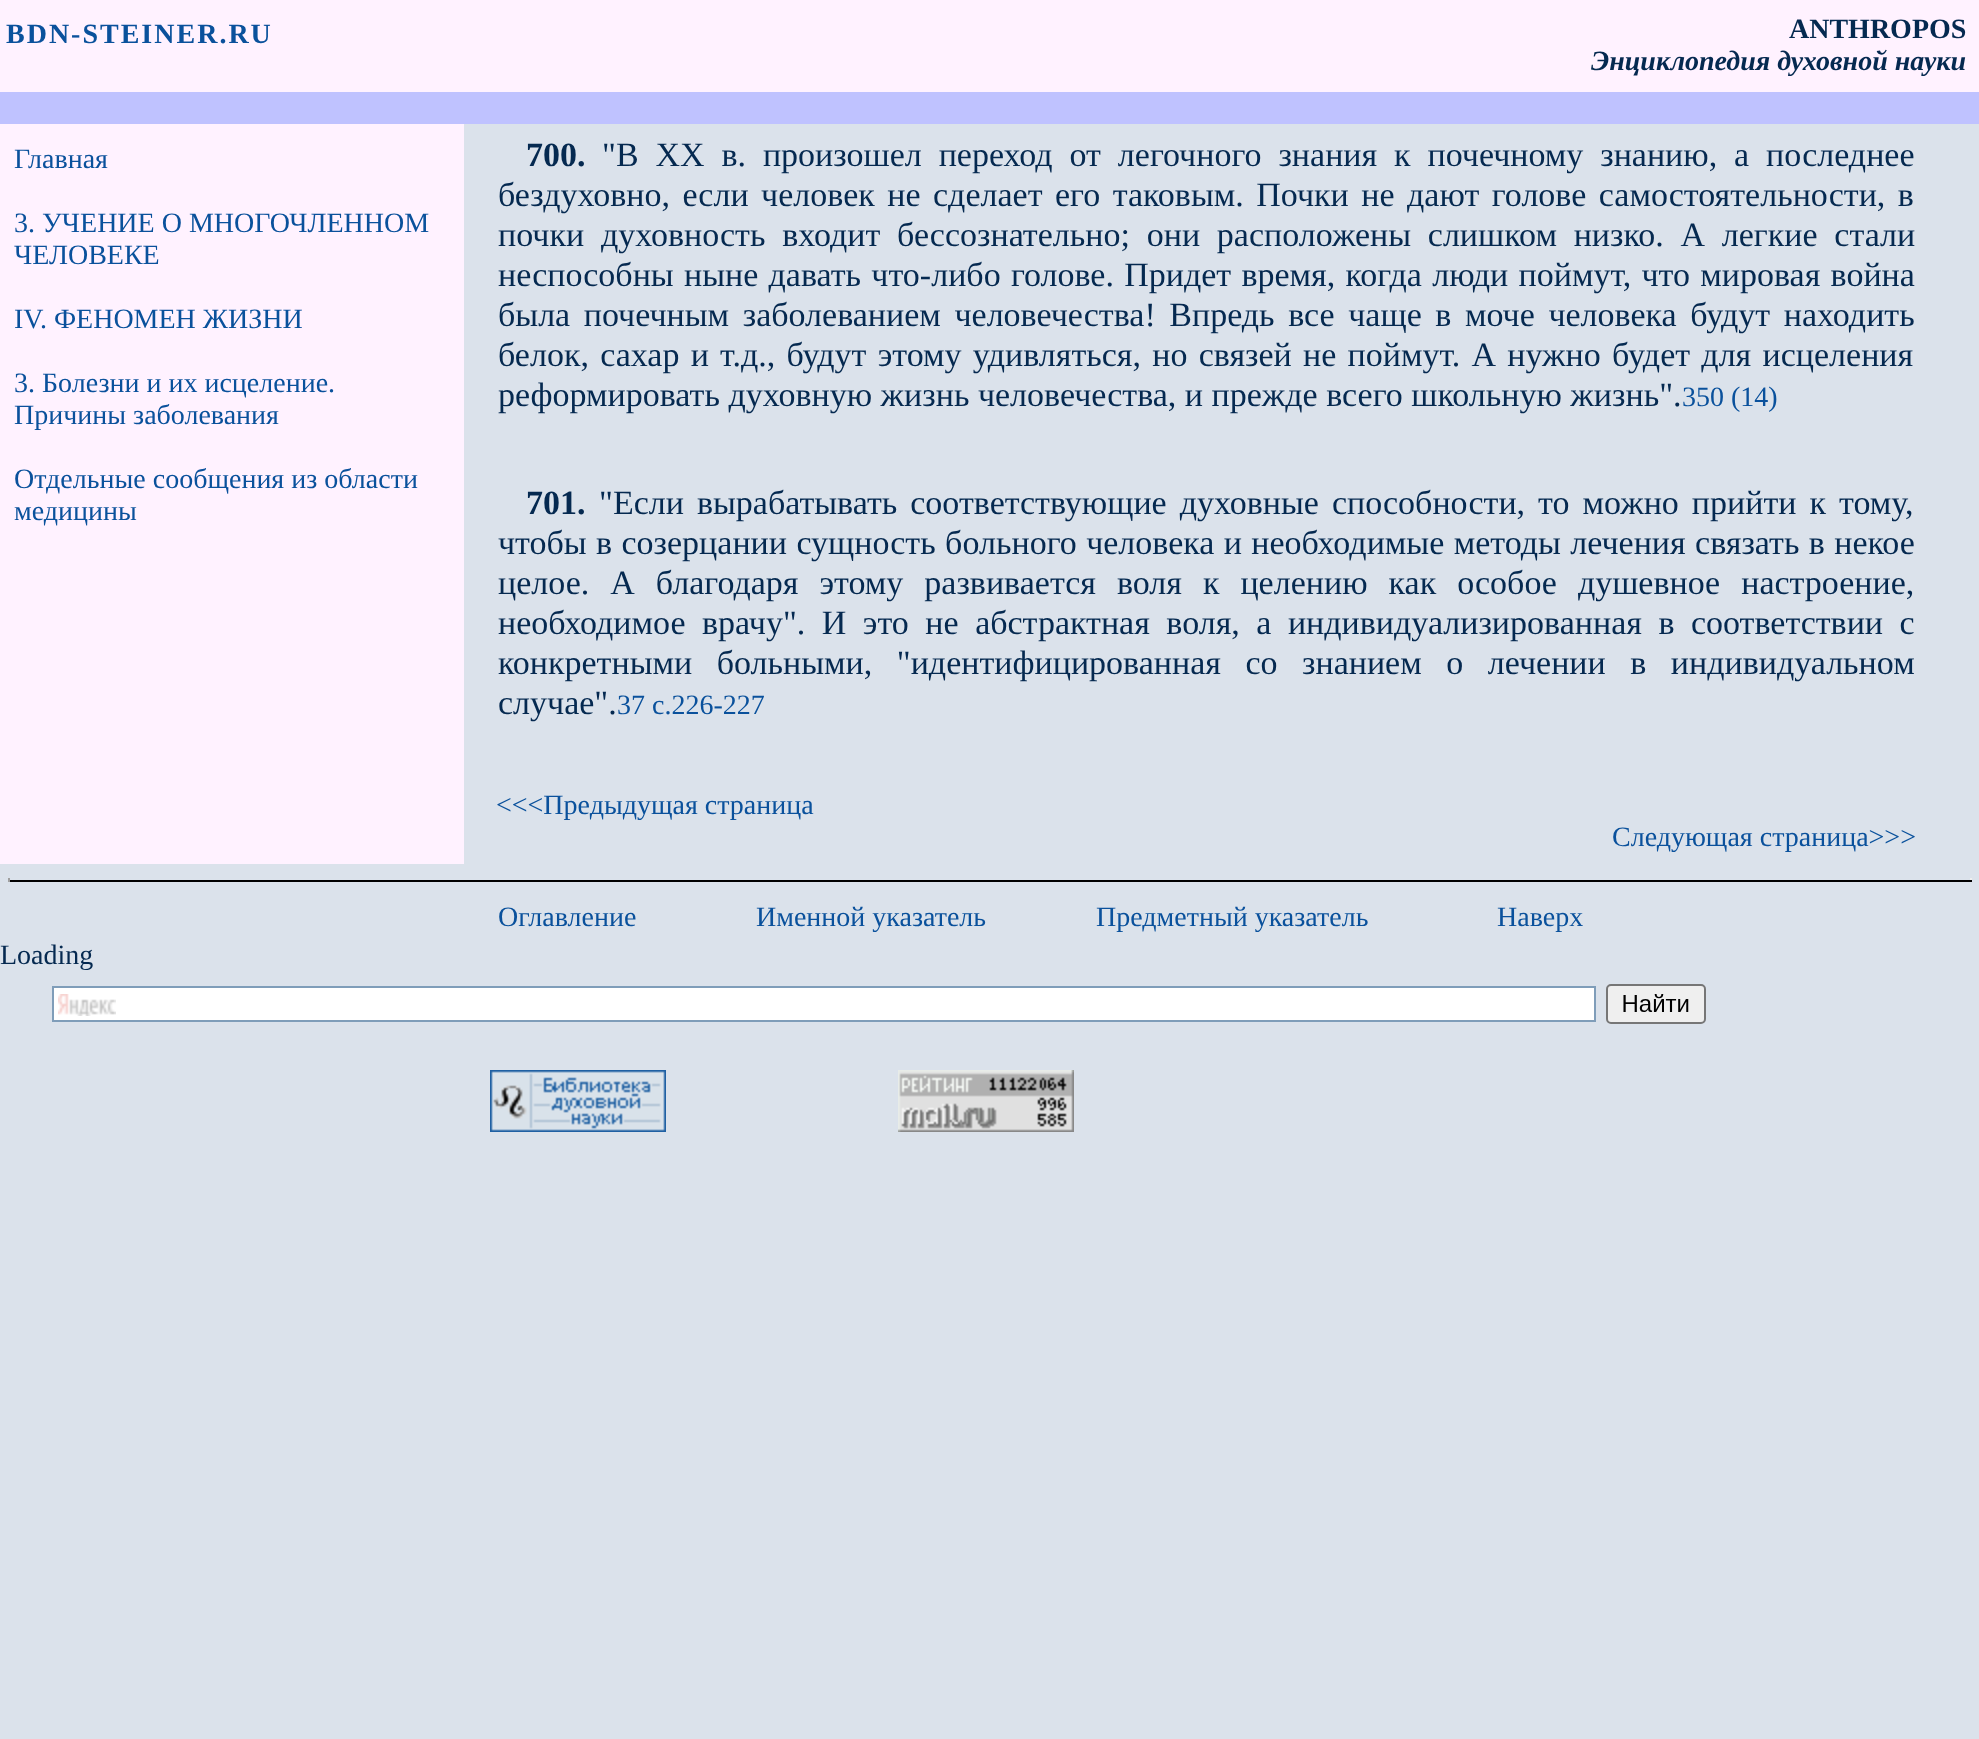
(async () => {
    const canvas = document.querySelector("canvas");
    canvas.width = 1979;
    canvas.height = 1739;
    const context = canvas.getContext("2d");
    context.miterLimit = 4;
    context.fontKerning = "normal";
    function write(s, x, y, font, color) {
        context.font = font;
        context.fillStyle = color;
        context.fillText(s, x, y);
    }
    function block(x, y, w, h, color) {
        context.fillStyle = color;
        context.fillRect(x, y, w, h);
    }
    async function photo(src, x, y, w, h) {
        const img = new Image();
        img.src = src;
        await img.decode();
        context.drawImage(img, x, y, w, h);
    }

    block(0, 0, 1979, 1739, "rgb(219, 226, 235)");
    block(0, 0, 1979, 92, "rgb(255, 242, 255)");
    context.letterSpacing = "2px";
    write("BDN-STEINER.RU", 6, 43, "bold 28px Liberation Serif", "rgb(10, 81, 156)");
    context.letterSpacing = "0px";
    write("ANTHROPOS", 1789, 38, "bold 28px Liberation Serif", "rgb(5, 41, 80)");
    write("Энциклопедия духовной науки", 1591, 70, "italic bold 28px Liberation Serif", "rgb(5, 41, 80)");
    block(0, 92, 1979, 32, "rgb(191, 194, 255)");
    block(0, 124, 464, 740, "rgb(255, 242, 255)");
    write("Главная", 14, 168, "28px Liberation Serif", "rgb(10, 81, 156)");
    write("3. УЧЕНИЕ О МНОГОЧЛЕННОМ", 14, 232, "28px Liberation Serif", "rgb(10, 81, 156)");
    write("ЧЕЛОВЕКЕ", 14, 264, "28px Liberation Serif", "rgb(10, 81, 156)");
    write("IV. ФЕНОМЕН ЖИЗНИ", 14, 328, "28px Liberation Serif", "rgb(10, 81, 156)");
    write("3. Болезни и их исцеление.", 14, 392, "28px Liberation Serif", "rgb(10, 81, 156)");
    write("Причины заболевания", 14, 424, "28px Liberation Serif", "rgb(10, 81, 156)");
    write("Отдельные сообщения из области", 14, 488, "28px Liberation Serif", "rgb(10, 81, 156)");
    write("медицины", 14, 520, "28px Liberation Serif", "rgb(10, 81, 156)");
    write("700.", 526, 166, "bold 34px Liberation Serif", "rgb(5, 41, 80)");
    context.wordSpacing = "8.4px";
    write("\"В XX в. произошел переход от легочного знания к почечному знанию, а последнее", 602, 166, "34px Liberation Serif", "rgb(5, 41, 80)");
    context.wordSpacing = "4px";
    write("бездуховно, если человек не сделает его таковым. Почки не дают голове самостоятельности, в", 498, 206, "34px Liberation Serif", "rgb(5, 41, 80)");
    context.wordSpacing = "8.25px";
    write("почки духовность входит бессознательно; они расположены слишком низко. А легкие стали", 498, 246, "34px Liberation Serif", "rgb(5, 41, 80)");
    context.wordSpacing = "1.75px";
    write("неспособны ныне давать что-либо голове. Придет время, когда люди поймут, что мировая война", 498, 286, "34px Liberation Serif", "rgb(5, 41, 80)");
    context.wordSpacing = "5.1px";
    write("была почечным заболеванием человечества! Впредь все чаще в моче человека будут находить", 498, 326, "34px Liberation Serif", "rgb(5, 41, 80)");
    context.wordSpacing = "2.75px";
    write("белок, сахар и т.д., будут этому удивляться, но связей не поймут. А нужно будет для исцеления", 498, 366, "34px Liberation Serif", "rgb(5, 41, 80)");
    context.wordSpacing = "0px";
    write("реформировать духовную жизнь человечества, и прежде всего школьную жизнь\".", 498, 406, "34px Liberation Serif", "rgb(5, 41, 80)");
    write("350 (14)", 1682, 406, "28px Liberation Serif", "rgb(10, 81, 156)");
    write("701.", 526, 514, "bold 34px Liberation Serif", "rgb(5, 41, 80)");
    context.wordSpacing = "4.5px";
    write("\"Если вырабатывать соответствующие духовные способности, то можно прийти к тому,", 599, 514, "34px Liberation Serif", "rgb(5, 41, 80)");
    context.wordSpacing = "0.9px";
    write("чтобы в созерцании сущность больного человека и необходимые методы лечения связать в некое", 498, 554, "34px Liberation Serif", "rgb(5, 41, 80)");
    context.wordSpacing = "12.5px";
    write("целое. А благодаря этому развивается воля к целению как особое душевное настроение,", 498, 594, "34px Liberation Serif", "rgb(5, 41, 80)");
    context.wordSpacing = "8px";
    write("необходимое врачу\". И это не абстрактная воля, а индивидуализированная в соответствии с", 498, 634, "34px Liberation Serif", "rgb(5, 41, 80)");
    context.wordSpacing = "16px";
    write("конкретными больными, \"идентифицированная со знанием о лечении в индивидуальном", 498, 674, "34px Liberation Serif", "rgb(5, 41, 80)");
    context.wordSpacing = "0px";
    write("случае\".", 498, 714, "34px Liberation Serif", "rgb(5, 41, 80)");
    write("37 с.226-227", 617, 714, "28px Liberation Serif", "rgb(10, 81, 156)");
    write("<<<Предыдущая страница", 496, 814, "28px Liberation Serif", "rgb(10, 81, 156)");
    write("Следующая страница>>>", 1612, 846, "28px Liberation Serif", "rgb(10, 81, 156)");
    block(1970, 878, 2, 4, "rgb(238, 238, 238)");
    block(8, 880, 1964, 2, "rgb(0, 0, 0)");
    block(8, 878, 2, 4, "rgb(159, 159, 159)");
    write("Оглавление", 498, 926, "28px Liberation Serif", "rgb(10, 81, 156)");
    write("Именной указатель", 756, 926, "28px Liberation Serif", "rgb(10, 81, 156)");
    write("Предметный указатель", 1096, 926, "28px Liberation Serif", "rgb(10, 81, 156)");
    write("Наверх", 1497, 926, "28px Liberation Serif", "rgb(10, 81, 156)");
    write("Loading", 0, 964, "28px Liberation Serif", "rgb(5, 41, 80)");
    await photo("media/1.png", 52, 984, 1654, 40);
    await photo("media/2.png", 490, 1070, 176, 62);
    await photo("media/3.png", 898, 1070, 176, 62);
})();
